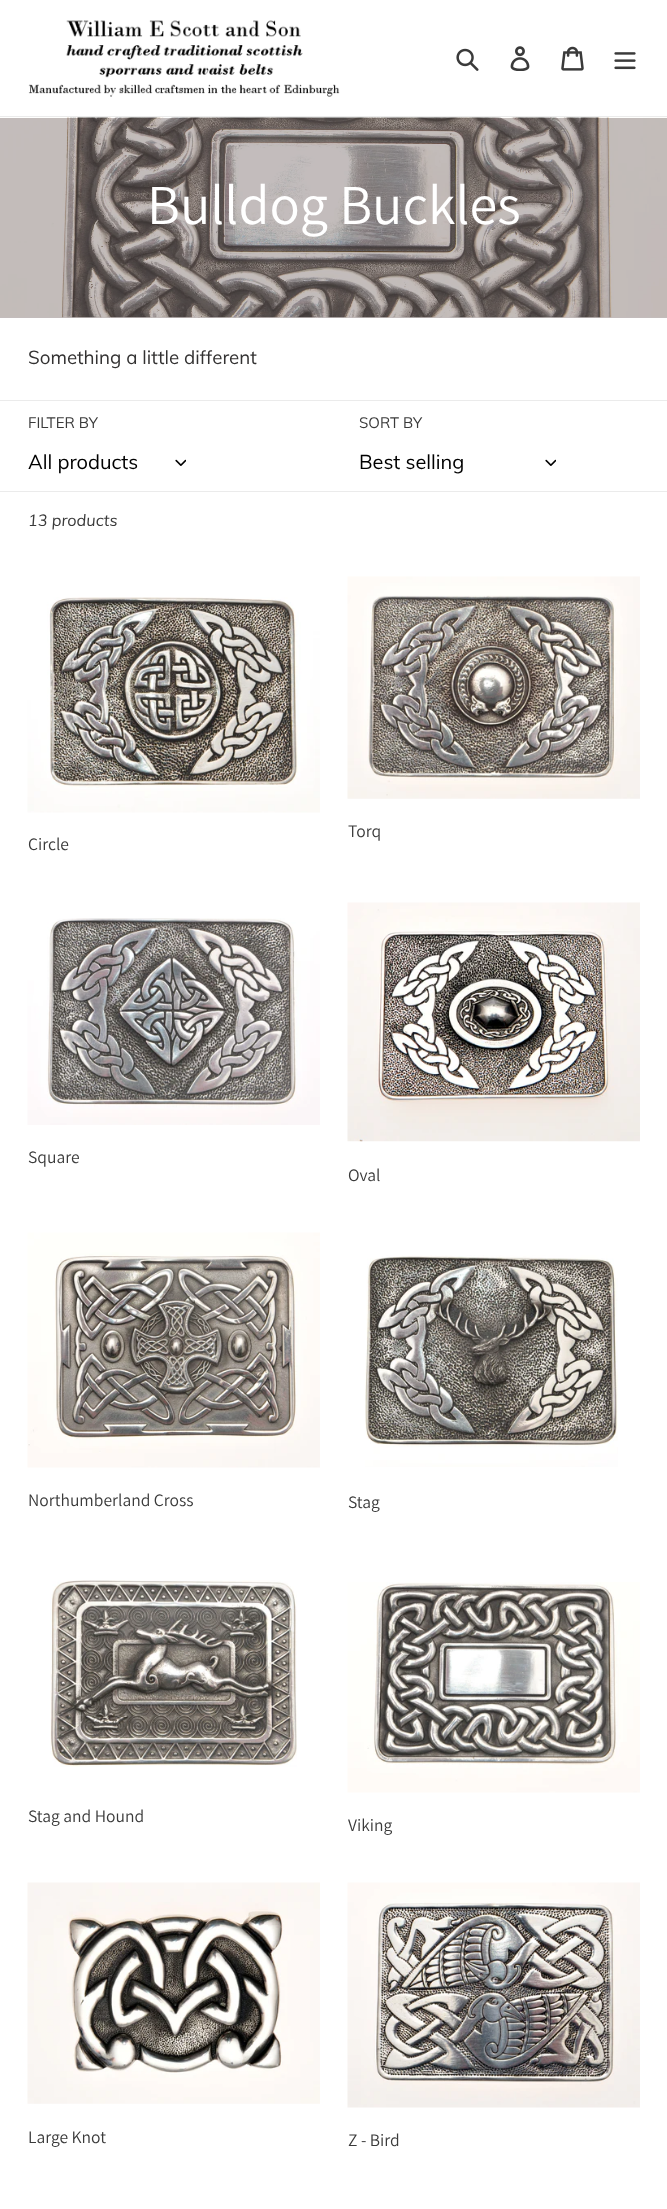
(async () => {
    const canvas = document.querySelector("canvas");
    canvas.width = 667;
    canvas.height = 2209;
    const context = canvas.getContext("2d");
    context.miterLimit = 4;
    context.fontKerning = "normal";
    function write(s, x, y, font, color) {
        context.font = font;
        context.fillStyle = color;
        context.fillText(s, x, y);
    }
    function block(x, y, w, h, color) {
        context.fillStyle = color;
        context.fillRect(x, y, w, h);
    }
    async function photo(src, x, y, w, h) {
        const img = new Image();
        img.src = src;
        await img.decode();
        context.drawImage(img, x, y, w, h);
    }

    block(0, 0, 667, 2209, "rgb(255, 255, 255)");
    block(0, 317, 667, 1, "rgb(195, 188, 188)");
    block(0, 116, 667, 1, "rgb(235, 235, 235)");
    await photo("media/1.png", 28, 20, 312, 77);
    await photo("media/2.png", 456, 48, 23, 23);
    await photo("media/3.png", 510, 46, 20, 25);
    await photo("media/4.png", 561, 46, 23, 25);
    await photo("media/5.png", 614, 52, 22, 18);
    await photo("media/6.png", 0, 117, 667, 201);
    write("Bulldog Buckles", 147, 224, "56.25px Assistant", "rgb(255, 255, 255)");
    write("Something a little different", 28, 364, "18.75px Muli", "rgb(51, 50, 50)");
    block(0, 400, 667, 1, "rgb(235, 235, 235)");
    write("FILTER BY", 28, 428, "15px Muli", "rgb(58, 58, 58)");
    write("All products", 28, 469, "20px Muli", "rgb(0, 0, 0)");
    await photo("media/7.png", 175, 459, 11, 7);
    write("SORT BY", 359, 428, "15px Muli", "rgb(58, 58, 58)");
    write("Best selling", 359, 469, "20px Muli", "rgb(0, 0, 0)");
    await photo("media/7.png", 545, 459, 11, 7);
    block(0, 491, 667, 1, "rgb(235, 235, 235)");
    write("13 products", 28, 526, "italic 16.25px Muli", "rgb(58, 58, 58)");
    await photo("media/8.png", 347, 576, 293, 223);
    write("Torq", 348, 837, "17.5px Assistant", "rgb(58, 58, 58)");
    await photo("media/9.png", 27, 597, 293, 216);
    write("Circle", 28, 850, "17.5px Assistant", "rgb(58, 58, 58)");
    await photo("media/10.png", 27, 918, 293, 207);
    write("Square", 28, 1163, "17.5px Assistant", "rgb(58, 58, 58)");
    await photo("media/11.png", 347, 902, 293, 240);
    write("Oval", 348, 1181, "17.5px Assistant", "rgb(58, 58, 58)");
    await photo("media/12.png", 27, 1232, 293, 236);
    write("Northumberland Cross", 28, 1506, "17.5px Assistant", "rgb(58, 58, 58)");
    await photo("media/13.png", 365, 1255, 253, 212);
    write("Stag", 348, 1508, "17.5px Assistant", "rgb(58, 58, 58)");
    await photo("media/14.png", 50, 1580, 247, 187);
    write("Stag and Hound", 28, 1822, "17.5px Assistant", "rgb(58, 58, 58)");
    await photo("media/15.png", 347, 1582, 293, 211);
    write("Viking", 348, 1831, "17.5px Assistant", "rgb(58, 58, 58)");
    await photo("media/16.png", 27, 1882, 293, 222);
    write("Large Knot", 28, 2143, "17.5px Assistant", "rgb(58, 58, 58)");
    await photo("media/17.png", 347, 1882, 293, 226);
    write("Z - Bird", 348, 2146, "17.5px Assistant", "rgb(58, 58, 58)");
})();
